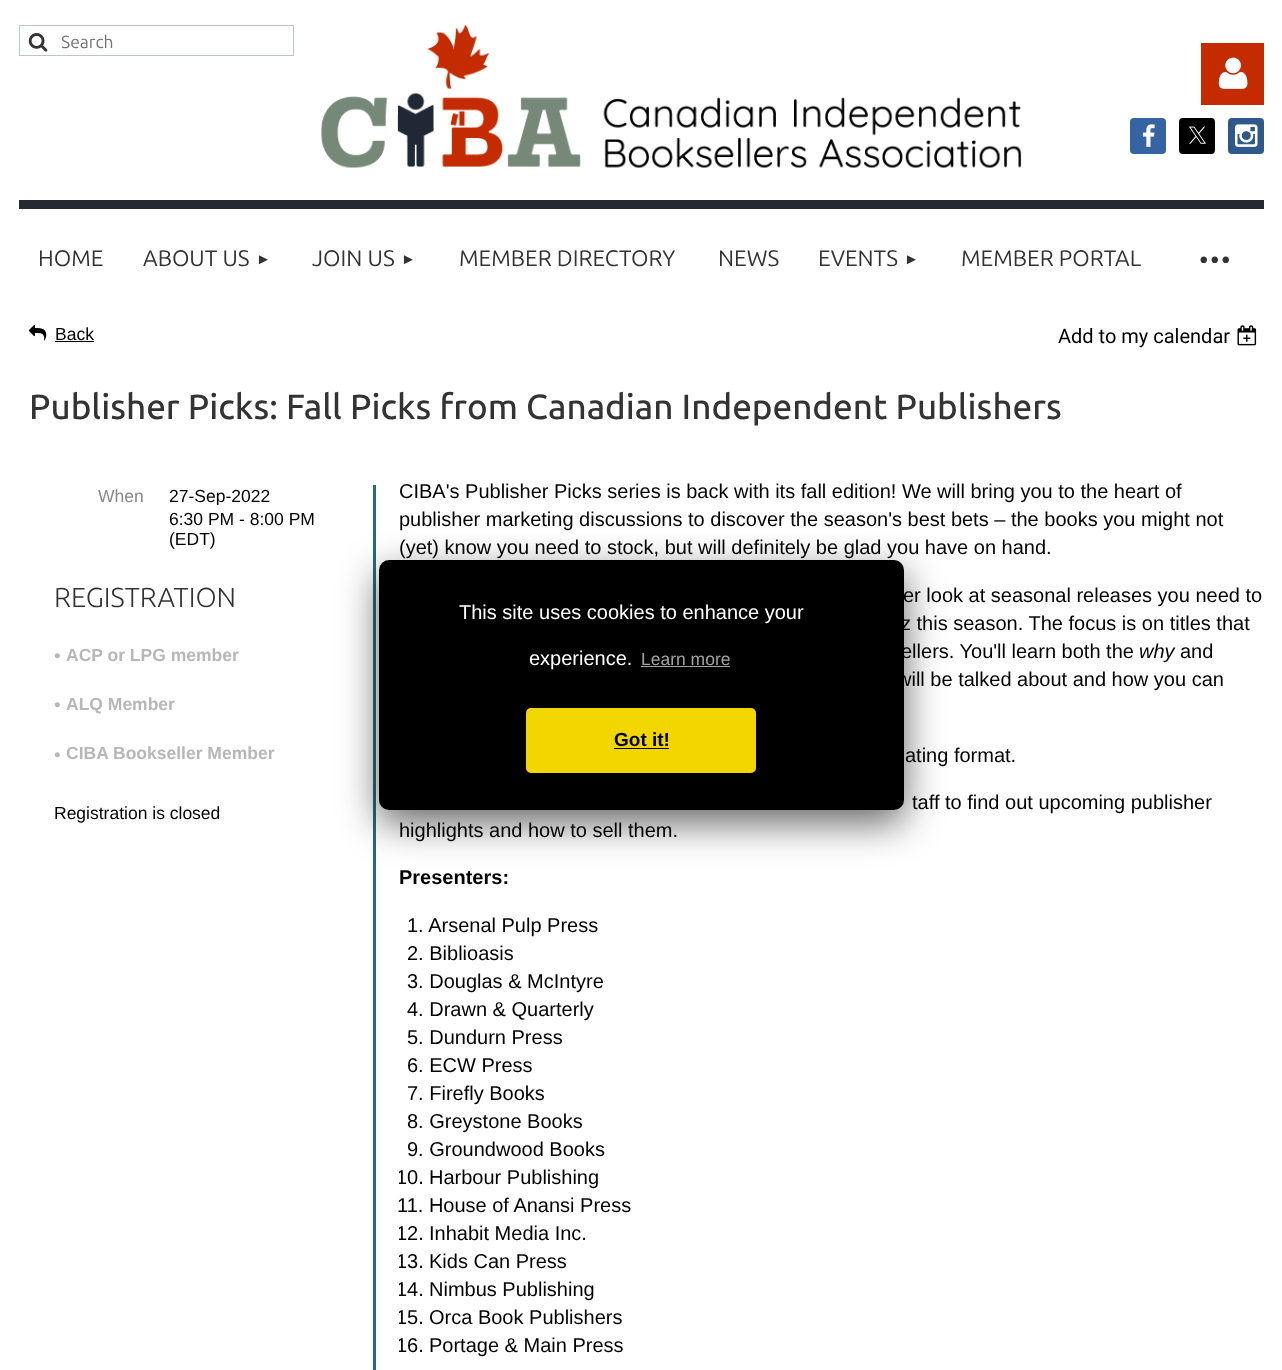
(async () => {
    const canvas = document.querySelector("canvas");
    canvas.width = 1282;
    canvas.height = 1370;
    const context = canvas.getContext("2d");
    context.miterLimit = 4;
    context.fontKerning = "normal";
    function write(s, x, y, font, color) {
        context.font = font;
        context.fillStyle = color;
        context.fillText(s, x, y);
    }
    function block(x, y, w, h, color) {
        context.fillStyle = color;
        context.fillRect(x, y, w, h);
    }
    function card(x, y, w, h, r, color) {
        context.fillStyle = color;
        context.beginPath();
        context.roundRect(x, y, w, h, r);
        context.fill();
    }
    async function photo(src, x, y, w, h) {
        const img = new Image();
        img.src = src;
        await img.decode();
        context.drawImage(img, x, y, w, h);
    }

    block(0, 0, 1282, 1370, "rgb(255, 255, 255)");
    context.strokeStyle = "rgb(184, 198, 205)";
    context.strokeRect(19.5, 25.5, 274, 30);
    await photo("media/1.png", 28, 33, 20, 19);
    write("Search", 61, 48, "17.5px Ubuntu", "rgb(117, 117, 117)");
    await photo("media/2.png", 321, 25, 701, 143);
    block(1201, 43, 63, 62, "rgb(196, 44, 0)");
    await photo("media/3.png", 1218, 57, 30, 32);
    card(1130, 118, 36, 36, 4, "rgb(54, 100, 162)");
    await photo("media/4.png", 1142, 124, 13, 23);
    card(1179, 118, 36, 36, 4, "rgb(0, 0, 0)");
    await photo("media/5.png", 1189, 126, 17, 18);
    card(1228, 118, 36, 36, 4, "rgb(47, 89, 138)");
    await photo("media/6.png", 1235, 124, 23, 23);
    block(19, 200, 1245, 9, "rgb(37, 41, 50)");
    write("HOME", 38, 266, "22.5px Ubuntu", "rgb(51, 51, 51)");
    write("ABOUT US", 143, 266, "22.5px Ubuntu", "rgb(51, 51, 51)");
    write("►", 256, 264, "15px Liberation Sans", "rgb(51, 51, 51)");
    write("JOIN US", 312, 266, "22.5px Ubuntu", "rgb(51, 51, 51)");
    write("►", 401, 264, "15px Liberation Sans", "rgb(51, 51, 51)");
    write("MEMBER DIRECTORY", 459, 266, "22.5px Ubuntu", "rgb(51, 51, 51)");
    write("NEWS", 718, 266, "22.5px Ubuntu", "rgb(51, 51, 51)");
    write("EVENTS", 818, 266, "22.5px Ubuntu", "rgb(51, 51, 51)");
    write("►", 904, 264, "15px Liberation Sans", "rgb(51, 51, 51)");
    write("MEMBER PORTAL", 961, 266, "22.5px Ubuntu", "rgb(51, 51, 51)");
    context.letterSpacing = "-2.5px";
    write("···", 1197, 276, "55px Ubuntu", "rgb(51, 51, 51)");
    await photo("media/7.png", 28, 324, 19, 17);
    context.letterSpacing = "0px";
    write("Back", 55, 340, "17.5px Liberation Sans", "rgb(0, 0, 0)");
    block(55, 341, 39, 1, "rgb(0, 0, 0)");
    write("Add to my calendar", 1058, 343, "20px Roboto", "rgb(0, 0, 0)");
    await photo("media/8.png", 1237, 325, 20, 21);
    write("Publisher Picks: Fall Picks from Canadian Independent Publishers", 29, 419, "500 35px Ubuntu", "rgb(51, 51, 51)");
    block(373, 485, 3, 885, "rgb(38, 108, 120)");
    write("When", 98, 502, "17.5px Liberation Sans", "rgb(137, 137, 137)");
    context.save();
    context.beginPath();
    context.rect(169, 485, 179, 20);
    context.clip();
    write("27-Sep-2022", 169, 502, "17.5px Liberation Sans", "rgb(0, 0, 0)");
    context.restore();
    write("6:30 PM - 8:00 PM", 169, 525, "17.5px Liberation Sans", "rgb(0, 0, 0)");
    write("(EDT)", 169, 545, "17.5px Liberation Sans", "rgb(0, 0, 0)");
    write("REGISTRATION", 54, 607, "300 27.5px Ubuntu", "rgb(51, 51, 51)");
    write("•", 54, 662, "19px Liberation Sans", "rgb(183, 183, 183)");
    write("ACP or LPG member", 66, 661, "bold 17.5px Liberation Sans", "rgb(183, 183, 183)");
    write("•", 54, 711, "19px Liberation Sans", "rgb(183, 183, 183)");
    write("ALQ Member", 66, 710, "bold 17.5px Liberation Sans", "rgb(183, 183, 183)");
    write("•", 54, 761, "19px Liberation Sans", "rgb(183, 183, 183)");
    write("CIBA Bookseller Member", 66, 759, "bold 17.5px Liberation Sans", "rgb(183, 183, 183)");
    write("Registration is closed", 54, 819, "17.5px Liberation Sans", "rgb(0, 0, 0)");
    write("CIBA's Publisher Picks series is back with its fall edition! We will bring you to the heart of", 399, 498, "20px Liberation Sans", "rgb(0, 0, 0)");
    write("publisher marketing discussions to discover the season's best bets – the books you might not", 399, 526, "20px Liberation Sans", "rgb(0, 0, 0)");
    write("(yet) know you need to stock, but will definitely be glad you have on hand.", 399, 554, "20px Liberation Sans", "rgb(0, 0, 0)");
    write("er look at seasonal releases you need to", 903, 602, "20px Liberation Sans", "rgb(0, 0, 0)");
    write("z this season. The focus is on titles that", 901, 630, "20px Liberation Sans", "rgb(0, 0, 0)");
    write("ellers. You'll learn both the", 901, 658, "20px Liberation Sans", "rgb(0, 0, 0)");
    write("why", 1139, 658, "italic 20px Liberation Sans", "rgb(0, 0, 0)");
    write("and", 1180, 658, "20px Liberation Sans", "rgb(0, 0, 0)");
    write("will be talked about and how you can", 897, 686, "20px Liberation Sans", "rgb(0, 0, 0)");
    write("ating format.", 905, 762, "20px Liberation Sans", "rgb(0, 0, 0)");
    write("taff to find out upcoming publisher", 912, 809, "20px Liberation Sans", "rgb(0, 0, 0)");
    write("highlights and how to sell them.", 399, 837, "20px Liberation Sans", "rgb(0, 0, 0)");
    write("Presenters:", 399, 884, "bold 20px Liberation Sans", "rgb(0, 0, 0)");
    write("1. Arsenal Pulp Press", 407, 932, "20px Liberation Sans", "rgb(0, 0, 0)");
    write("2. Biblioasis", 407, 960, "20px Liberation Sans", "rgb(0, 0, 0)");
    write("3. Douglas & McIntyre", 407, 988, "20px Liberation Sans", "rgb(0, 0, 0)");
    write("4. Drawn & Quarterly", 407, 1016, "20px Liberation Sans", "rgb(0, 0, 0)");
    write("5. Dundurn Press", 407, 1044, "20px Liberation Sans", "rgb(0, 0, 0)");
    write("6. ECW Press", 407, 1072, "20px Liberation Sans", "rgb(0, 0, 0)");
    write("7. Firefly Books", 407, 1100, "20px Liberation Sans", "rgb(0, 0, 0)");
    write("8. Greystone Books", 407, 1128, "20px Liberation Sans", "rgb(0, 0, 0)");
    write("9. Groundwood Books", 407, 1156, "20px Liberation Sans", "rgb(0, 0, 0)");
    context.save();
    context.beginPath();
    context.rect(399, 478, 865, 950);
    context.clip();
    write("10.", 396, 1184, "20px Liberation Sans", "rgb(0, 0, 0)");
    context.restore();
    write("Harbour Publishing", 429, 1184, "20px Liberation Sans", "rgb(0, 0, 0)");
    write("11. House of Anansi Press", 397, 1212, "20px Liberation Sans", "rgb(0, 0, 0)");
    context.save();
    context.beginPath();
    context.rect(399, 478, 865, 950);
    context.clip();
    write("12.", 396, 1240, "20px Liberation Sans", "rgb(0, 0, 0)");
    context.restore();
    write("Inhabit Media Inc.", 429, 1240, "20px Liberation Sans", "rgb(0, 0, 0)");
    context.save();
    context.beginPath();
    context.rect(399, 478, 865, 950);
    context.clip();
    write("13.", 396, 1268, "20px Liberation Sans", "rgb(0, 0, 0)");
    context.restore();
    write("Kids Can Press", 429, 1268, "20px Liberation Sans", "rgb(0, 0, 0)");
    context.save();
    context.beginPath();
    context.rect(399, 478, 865, 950);
    context.clip();
    write("14.", 396, 1296, "20px Liberation Sans", "rgb(0, 0, 0)");
    context.restore();
    write("Nimbus Publishing", 429, 1296, "20px Liberation Sans", "rgb(0, 0, 0)");
    context.save();
    context.beginPath();
    context.rect(399, 478, 865, 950);
    context.clip();
    write("15.", 396, 1324, "20px Liberation Sans", "rgb(0, 0, 0)");
    context.restore();
    write("Orca Book Publishers", 429, 1324, "20px Liberation Sans", "rgb(0, 0, 0)");
    context.save();
    context.beginPath();
    context.rect(399, 478, 865, 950);
    context.clip();
    write("16.", 396, 1352, "20px Liberation Sans", "rgb(0, 0, 0)");
    context.restore();
    write("Portage & Main Press", 429, 1352, "20px Liberation Sans", "rgb(0, 0, 0)");
    context.fillStyle = "rgba(0, 0, 0, 0.6)";
    context.filter = "blur(19px)";
    context.beginPath();
    context.roundRect(379, 573, 525, 250, 10);
    context.fill();
    context.filter = "none";
    card(379, 560, 525, 250, 10, "rgb(0, 0, 0)");
    write("This site uses cookies to enhance your", 459, 619, "20px Liberation Sans", "rgb(255, 255, 255)");
    write("experience.", 529, 665, "20px Liberation Sans", "rgb(255, 255, 255)");
    write("Learn more", 641, 665, "17.5px Liberation Sans", "rgb(163, 163, 163)");
    block(641, 666, 89, 1, "rgb(163, 163, 163)");
    card(526, 708, 230, 65, 5, "rgb(241, 214, 0)");
    write("Got it!", 614, 746, "bold 19px Liberation Sans", "rgb(0, 0, 0)");
    block(614, 748, 55, 1, "rgb(0, 0, 0)");
})();
